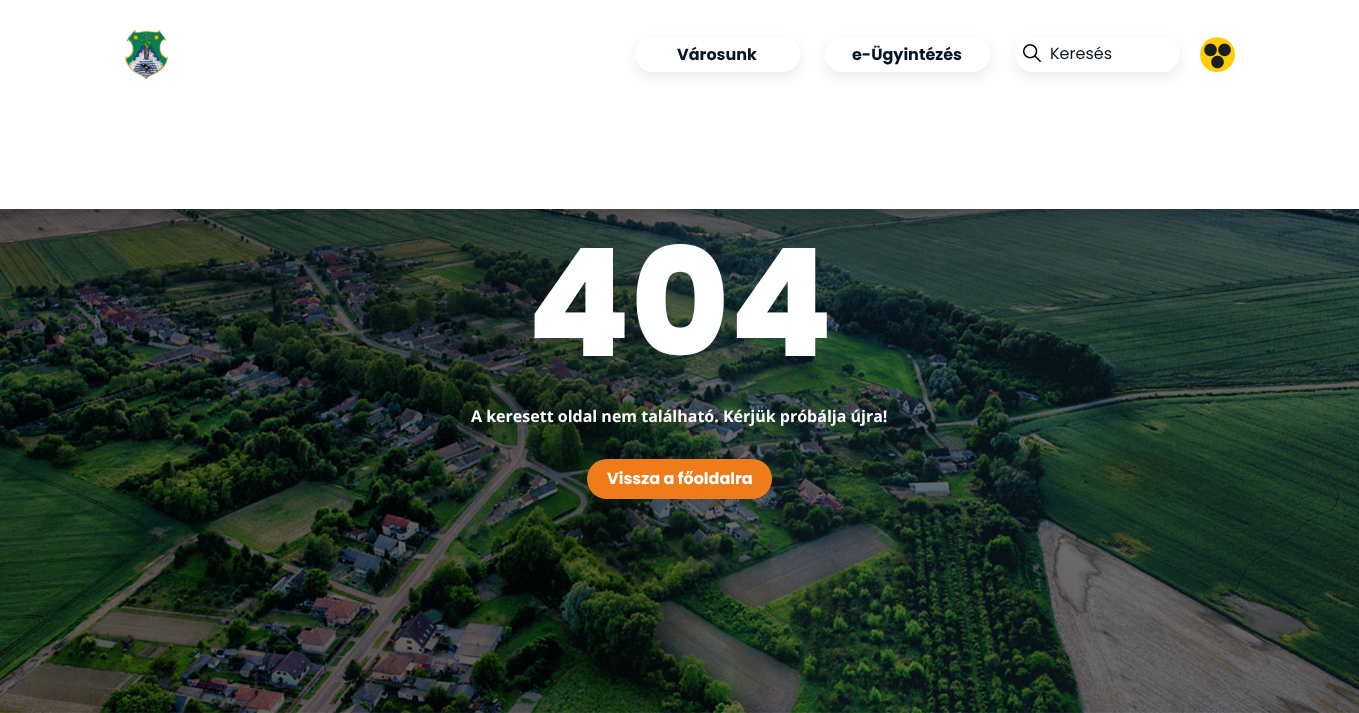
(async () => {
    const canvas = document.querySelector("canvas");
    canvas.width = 1359;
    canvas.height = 713;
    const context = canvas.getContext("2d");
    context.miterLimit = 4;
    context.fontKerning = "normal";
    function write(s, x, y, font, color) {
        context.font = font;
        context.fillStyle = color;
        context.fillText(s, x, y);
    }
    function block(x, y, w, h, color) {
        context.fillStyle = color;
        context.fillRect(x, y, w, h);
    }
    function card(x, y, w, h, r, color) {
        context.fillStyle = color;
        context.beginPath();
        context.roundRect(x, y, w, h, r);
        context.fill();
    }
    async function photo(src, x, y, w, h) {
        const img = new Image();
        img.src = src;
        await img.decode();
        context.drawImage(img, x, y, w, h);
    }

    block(0, 0, 1359, 713, "rgb(255, 255, 255)");
    await photo("media/6.png", 0, 209, 1359, 504);
    context.fillStyle = "rgba(0, 1, 22, 0.2)";
    context.filter = "blur(10px)";
    context.beginPath();
    context.rect(4, 2, 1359, 209);
    context.fill();
    context.filter = "none";
    block(0, 0, 1359, 209, "rgb(255, 255, 255)");
    await photo("media/1.png", 124, 30, 44, 49);
    context.fillStyle = "rgba(49, 49, 49, 0.1)";
    context.filter = "blur(7.5px)";
    context.beginPath();
    context.roundRect(635, 42, 165, 35, 17.5);
    context.fill();
    context.filter = "none";
    card(635, 37, 165, 35, 17.5, "rgb(255, 255, 255)");
    write("Városunk", 677, 60, "bold 16px Poppins", "rgb(9, 22, 34)");
    context.fillStyle = "rgba(49, 49, 49, 0.1)";
    context.filter = "blur(7.5px)";
    context.beginPath();
    context.roundRect(825, 42, 165, 35, 17.5);
    context.fill();
    context.filter = "none";
    card(825, 37, 165, 35, 17.5, "rgb(255, 255, 255)");
    write("e-Ügyintézés", 852, 60, "bold 16px Poppins", "rgb(9, 22, 34)");
    context.fillStyle = "rgb(255, 205, 5)";
    context.beginPath();
    context.moveTo(1235, 54.5);
    context.bezierCurveTo(1235, 64.5, 1226.5, 72.5, 1216.5, 72);
    context.bezierCurveTo(1211, 72, 1205.5, 68.5, 1202.5, 64);
    context.bezierCurveTo(1200.5, 60, 1199.5, 55.5, 1200.5, 51);
    context.bezierCurveTo(1204.5, 30.5, 1235, 34, 1235, 54.5);
    context.closePath();
    context.fill();
    context.fillStyle = "rgba(49, 49, 49, 0.1)";
    context.filter = "blur(7.5px)";
    context.beginPath();
    context.roundRect(1015, 42, 165, 35, 17.5);
    context.fill();
    context.filter = "none";
    card(1015, 37, 165, 35, 17.5, "rgb(255, 255, 255)");
    await photo("media/2.png", 1023, 44, 18, 19);
    context.save();
    context.beginPath();
    context.roundRect(1050, 37, 130, 35, 17.5);
    context.clip();
    write("Keresés", 1050, 59, "16px Poppins", "rgb(9, 22, 34)");
    context.restore();
    await photo("media/3.png", 1204, 43, 13, 14);
    await photo("media/4.png", 1218, 43, 13, 14);
    await photo("media/5.png", 1211, 55, 13, 14);
    write("404", 527, 356, "800 150px Poppins", "rgb(255, 255, 255)");
    write("A keresett oldal nem található. Kérjük próbálja újra!", 471, 422, "bold 16px Open Sans", "rgb(255, 255, 255)");
    context.fillStyle = "rgba(49, 49, 49, 0.2)";
    context.filter = "blur(7.5px)";
    context.beginPath();
    context.roundRect(587, 464, 185, 40, 20);
    context.fill();
    context.filter = "none";
    card(587, 459, 185, 40, 20, "rgb(239, 124, 26)");
    write("Vissza a főoldalra", 607, 484, "bold 16px Poppins", "rgb(255, 255, 255)");
})();
